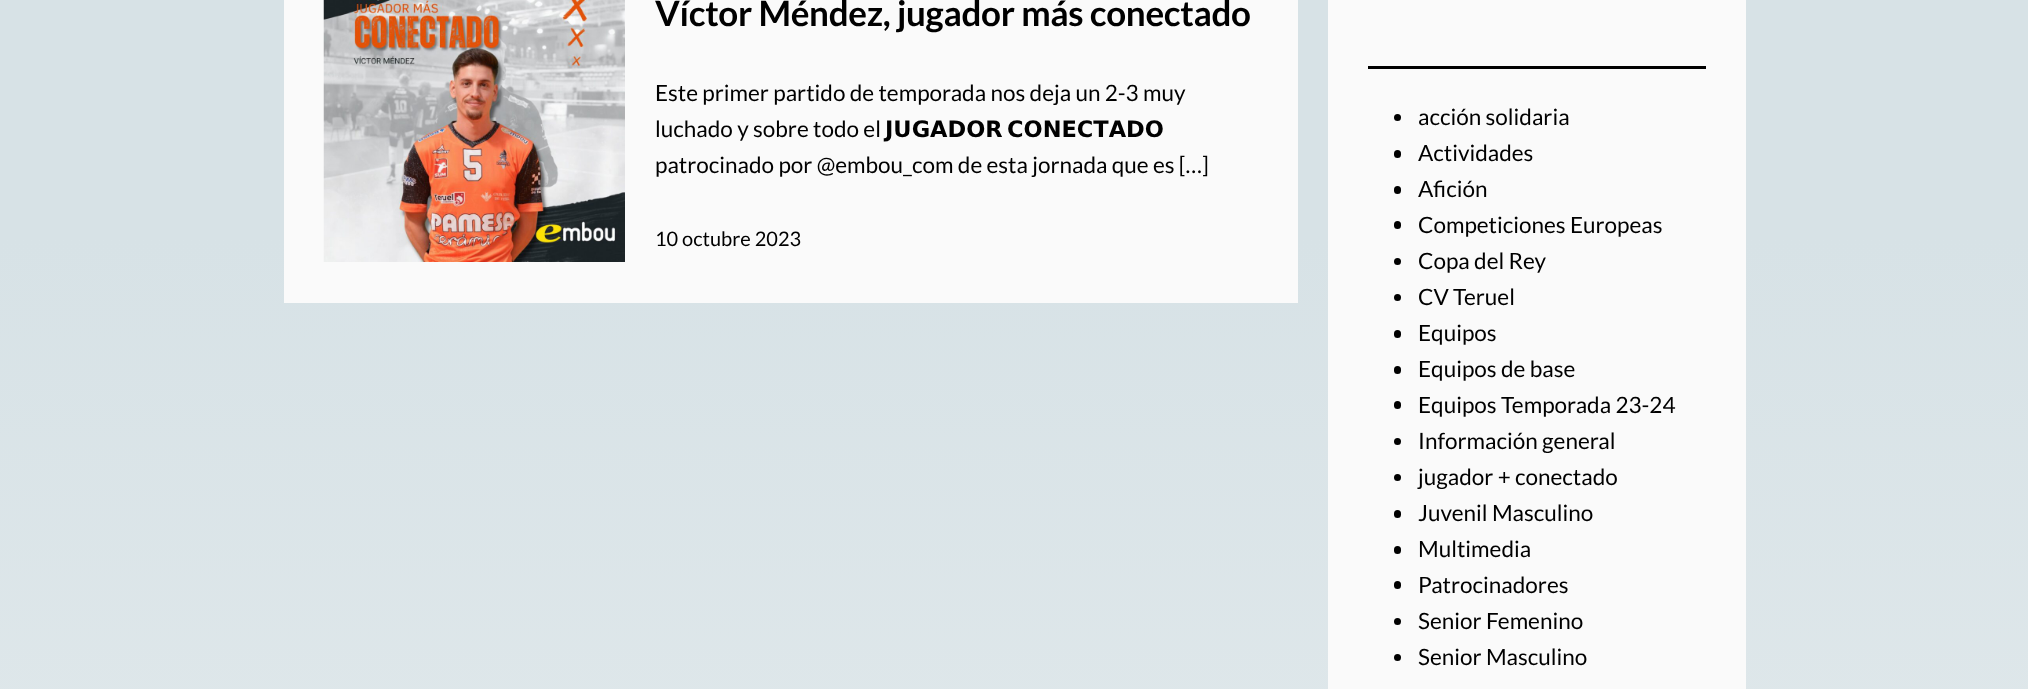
(async () => {
    const canvas = document.querySelector("canvas");
    canvas.width = 2028;
    canvas.height = 689;
    const context = canvas.getContext("2d");
    context.miterLimit = 4;
    context.fontKerning = "normal";
    function write(s, x, y, font, color) {
        context.font = font;
        context.fillStyle = color;
        context.fillText(s, x, y);
    }
    function block(x, y, w, h, color) {
        context.fillStyle = color;
        context.fillRect(x, y, w, h);
    }
    function card(x, y, w, h, r, color) {
        context.fillStyle = color;
        context.beginPath();
        context.roundRect(x, y, w, h, r);
        context.fill();
    }
    async function photo(src, x, y, w, h) {
        const img = new Image();
        img.src = src;
        await img.decode();
        context.drawImage(img, x, y, w, h);
    }
    let gradient;

    block(0, 0, 2028, 689, "rgb(255, 255, 255)");
    gradient = context.createLinearGradient(1014, -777, 1014, 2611);
    gradient.addColorStop(0, "rgb(250, 250, 250)");
    gradient.addColorStop(0.11, "rgb(250, 250, 250)");
    gradient.addColorStop(0.11, "rgb(215, 226, 230)");
    gradient.addColorStop(0.3, "rgb(215, 226, 230)");
    gradient.addColorStop(1, "rgb(250, 250, 250)");
    context.fillStyle = gradient;
    context.fillRect(0, 0, 2028, 689);
    block(284, 0, 1014, 303, "rgb(250, 250, 250)");
    await photo("media/1.png", 323, 0, 302, 262);
    context.letterSpacing = "-0.3px";
    write("Víctor Méndez, jugador más conectado", 655, 26, "bold 35px Lato", "rgb(0, 0, 0)");
    context.letterSpacing = "0px";
    write("Este primer partido de temporada nos deja un 2-3 muy", 655, 101, "22.5px Lato", "rgb(0, 0, 0)");
    write("luchado y sobre todo el", 655, 137, "22.5px Lato", "rgb(0, 0, 0)");
    write("𝗝𝗨𝗚𝗔𝗗𝗢𝗥", 885, 137, "bold 22.5px DejaVu Sans", "rgb(0, 0, 0)");
    write("𝗖𝗢𝗡𝗘𝗖𝗧𝗔𝗗𝗢", 1007, 137, "bold 22.5px DejaVu Sans", "rgb(0, 0, 0)");
    write("patrocinado por @embou_com de esta jornada que es […]", 655, 173, "22.5px Lato", "rgb(0, 0, 0)");
    write("10 octubre 2023", 655, 246, "20px Lato", "rgb(0, 0, 0)");
    block(1328, 0, 418, 689, "rgb(250, 250, 250)");
    block(1368, 66, 338, 3, "rgb(0, 0, 0)");
    context.beginPath();
    context.arc(1397.5, 117.5, 3.5, 0, Math.PI * 2);
    context.fill();
    write("acción solidaria", 1418, 125, "22.5px Lato", "rgb(0, 0, 0)");
    card(1394, 150, 7, 8, 3.5, "rgb(0, 0, 0)");
    write("Actividades", 1418, 161, "22.5px Lato", "rgb(0, 0, 0)");
    card(1394, 186, 7, 8, 3.5, "rgb(0, 0, 0)");
    write("Afición", 1418, 197, "22.5px Lato", "rgb(0, 0, 0)");
    card(1394, 221, 7, 8, 3.5, "rgb(0, 0, 0)");
    write("Competiciones Europeas", 1418, 233, "22.5px Lato", "rgb(0, 0, 0)");
    context.beginPath();
    context.arc(1397.5, 261.5, 3.5, 0, Math.PI * 2);
    context.fill();
    write("Copa del Rey", 1418, 269, "22.5px Lato", "rgb(0, 0, 0)");
    context.beginPath();
    context.arc(1397.5, 297.5, 3.5, 0, Math.PI * 2);
    context.fill();
    write("CV Teruel", 1418, 305, "22.5px Lato", "rgb(0, 0, 0)");
    card(1394, 330, 7, 8, 3.5, "rgb(0, 0, 0)");
    write("Equipos", 1418, 341, "22.5px Lato", "rgb(0, 0, 0)");
    card(1394, 366, 7, 8, 3.5, "rgb(0, 0, 0)");
    write("Equipos de base", 1418, 377, "22.5px Lato", "rgb(0, 0, 0)");
    card(1394, 401, 7, 8, 3.5, "rgb(0, 0, 0)");
    write("Equipos Temporada 23-24", 1418, 413, "22.5px Lato", "rgb(0, 0, 0)");
    context.beginPath();
    context.arc(1397.5, 441.5, 3.5, 0, Math.PI * 2);
    context.fill();
    write("Información general", 1418, 449, "22.5px Lato", "rgb(0, 0, 0)");
    context.beginPath();
    context.arc(1397.5, 477.5, 3.5, 0, Math.PI * 2);
    context.fill();
    write("jugador + conectado", 1418, 485, "22.5px Lato", "rgb(0, 0, 0)");
    card(1394, 510, 7, 8, 3.5, "rgb(0, 0, 0)");
    write("Juvenil Masculino", 1418, 521, "22.5px Lato", "rgb(0, 0, 0)");
    card(1394, 546, 7, 8, 3.5, "rgb(0, 0, 0)");
    write("Multimedia", 1418, 557, "22.5px Lato", "rgb(0, 0, 0)");
    card(1394, 581, 7, 8, 3.5, "rgb(0, 0, 0)");
    write("Patrocinadores", 1418, 593, "22.5px Lato", "rgb(0, 0, 0)");
    context.beginPath();
    context.arc(1397.5, 621.5, 3.5, 0, Math.PI * 2);
    context.fill();
    write("Senior Femenino", 1418, 629, "22.5px Lato", "rgb(0, 0, 0)");
    context.beginPath();
    context.arc(1397.5, 657.5, 3.5, 0, Math.PI * 2);
    context.fill();
    write("Senior Masculino", 1418, 665, "22.5px Lato", "rgb(0, 0, 0)");
})();
